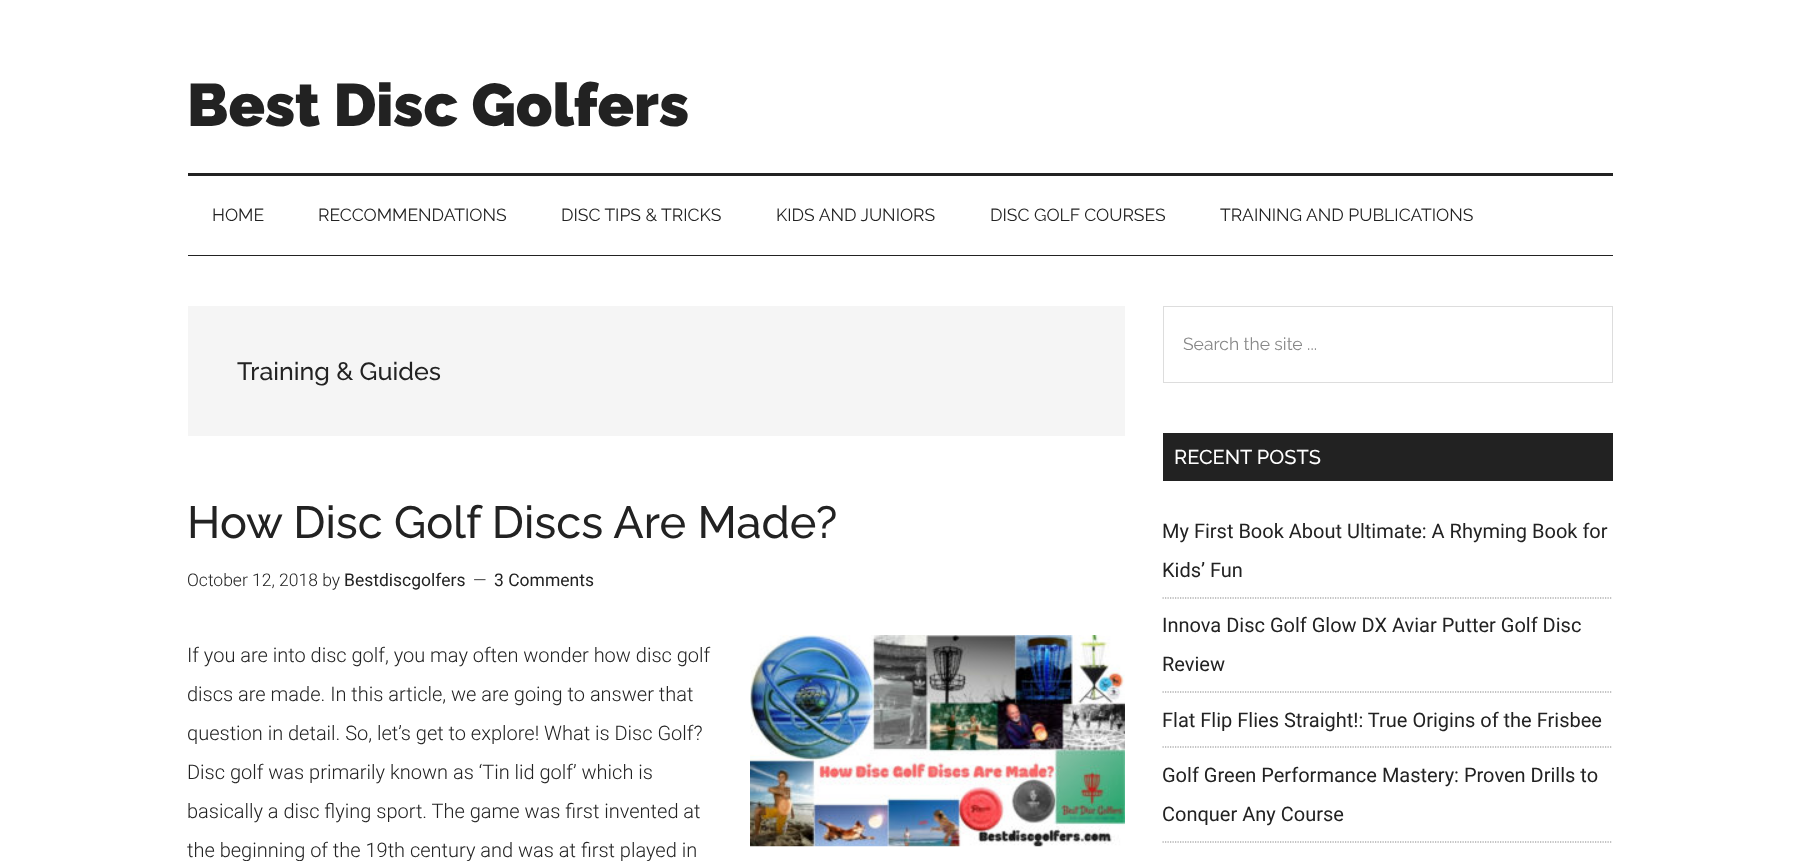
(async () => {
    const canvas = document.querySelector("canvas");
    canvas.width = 1798;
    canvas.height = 861;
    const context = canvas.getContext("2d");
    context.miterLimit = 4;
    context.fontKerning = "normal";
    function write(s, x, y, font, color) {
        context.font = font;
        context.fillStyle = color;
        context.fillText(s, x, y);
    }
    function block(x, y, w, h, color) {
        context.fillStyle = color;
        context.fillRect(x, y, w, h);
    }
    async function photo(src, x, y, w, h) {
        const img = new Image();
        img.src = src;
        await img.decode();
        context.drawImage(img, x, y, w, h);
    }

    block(0, 0, 1798, 861, "rgb(255, 255, 255)");
    block(188, 173, 1425, 3, "rgb(34, 34, 34)");
    write("Best Disc Golfers", 187, 126, "900 60px Raleway", "rgb(34, 34, 34)");
    block(188, 255, 1425, 1, "rgb(34, 34, 34)");
    write("HOME", 212, 221, "17.5px Raleway", "rgb(34, 34, 34)");
    write("RECCOMMENDATIONS", 318, 221, "17.5px Raleway", "rgb(34, 34, 34)");
    write("DISC TIPS & TRICKS", 561, 221, "17.5px Raleway", "rgb(34, 34, 34)");
    write("KIDS AND JUNIORS", 776, 221, "17.5px Raleway", "rgb(34, 34, 34)");
    write("DISC GOLF COURSES", 990, 221, "17.5px Raleway", "rgb(34, 34, 34)");
    write("TRAINING AND PUBLICATIONS", 1220, 221, "17.5px Raleway", "rgb(34, 34, 34)");
    block(188, 306, 937, 130, "rgb(245, 245, 245)");
    write("Training & Guides", 237, 380, "500 25px Raleway", "rgb(34, 34, 34)");
    write("How Disc Golf Discs Are Made?", 187, 538, "500 45px Raleway", "rgb(34, 34, 34)");
    write("October 12, 2018 by", 187, 586, "300 17.5px Roboto", "rgb(34, 34, 34)");
    write("Bestdiscgolfers", 344, 586, "17.5px Roboto", "rgb(34, 34, 34)");
    write("—", 473, 586, "300 17.5px Roboto", "rgb(34, 34, 34)");
    write("3 Comments", 494, 586, "17.5px Roboto", "rgb(34, 34, 34)");
    write("If you are into disc golf, you may often wonder how disc golf", 187, 662, "300 20px Roboto", "rgb(34, 34, 34)");
    write("discs are made. In this article, we are going to answer that", 187, 701, "300 20px Roboto", "rgb(34, 34, 34)");
    write("question in detail. So, let’s get to explore! What is Disc Golf?", 187, 740, "300 20px Roboto", "rgb(34, 34, 34)");
    write("Disc golf was primarily known as ‘Tin lid golf’ which is", 187, 779, "300 20px Roboto", "rgb(34, 34, 34)");
    write("basically a disc flying sport. The game was first invented at", 187, 818, "300 20px Roboto", "rgb(34, 34, 34)");
    write("the beginning of the 19th century and was at first played in", 187, 857, "300 20px Roboto", "rgb(34, 34, 34)");
    await photo("media/1.png", 750, 635, 375, 212);
    context.strokeStyle = "rgb(221, 221, 221)";
    context.strokeRect(1163.5, 306.5, 449, 76);
    write("Search the site ...", 1183, 350, "17.5px Raleway", "rgb(136, 136, 136)");
    block(1163, 433, 450, 48, "rgb(34, 34, 34)");
    write("RECENT POSTS", 1174, 464, "500 20px Raleway", "rgb(255, 255, 255)");
    context.beginPath();
    context.moveTo(1162.5, 598);
    context.lineTo(1612.5, 598);
    context.strokeStyle = "rgb(136, 136, 136)";
    context.lineWidth = 1.2;
    context.setLineDash([1.25, 1.25]);
    context.stroke();
    write("My First Book About Ultimate: A Rhyming Book for", 1162, 538, "20px Roboto", "rgb(34, 34, 34)");
    write("Kids’ Fun", 1162, 577, "20px Roboto", "rgb(34, 34, 34)");
    context.beginPath();
    context.moveTo(1162.5, 692);
    context.lineTo(1612.5, 692);
    context.stroke();
    write("Innova Disc Golf Glow DX Aviar Putter Golf Disc", 1162, 632, "20px Roboto", "rgb(34, 34, 34)");
    write("Review", 1162, 671, "20px Roboto", "rgb(34, 34, 34)");
    context.beginPath();
    context.moveTo(1162.5, 747);
    context.lineTo(1612.5, 747);
    context.stroke();
    write("Flat Flip Flies Straight!: True Origins of the Frisbee", 1162, 727, "20px Roboto", "rgb(34, 34, 34)");
    context.beginPath();
    context.moveTo(1162.5, 842);
    context.lineTo(1612.5, 842);
    context.stroke();
    write("Golf Green Performance Mastery: Proven Drills to", 1162, 782, "20px Roboto", "rgb(34, 34, 34)");
    write("Conquer Any Course", 1162, 821, "20px Roboto", "rgb(34, 34, 34)");
})();
